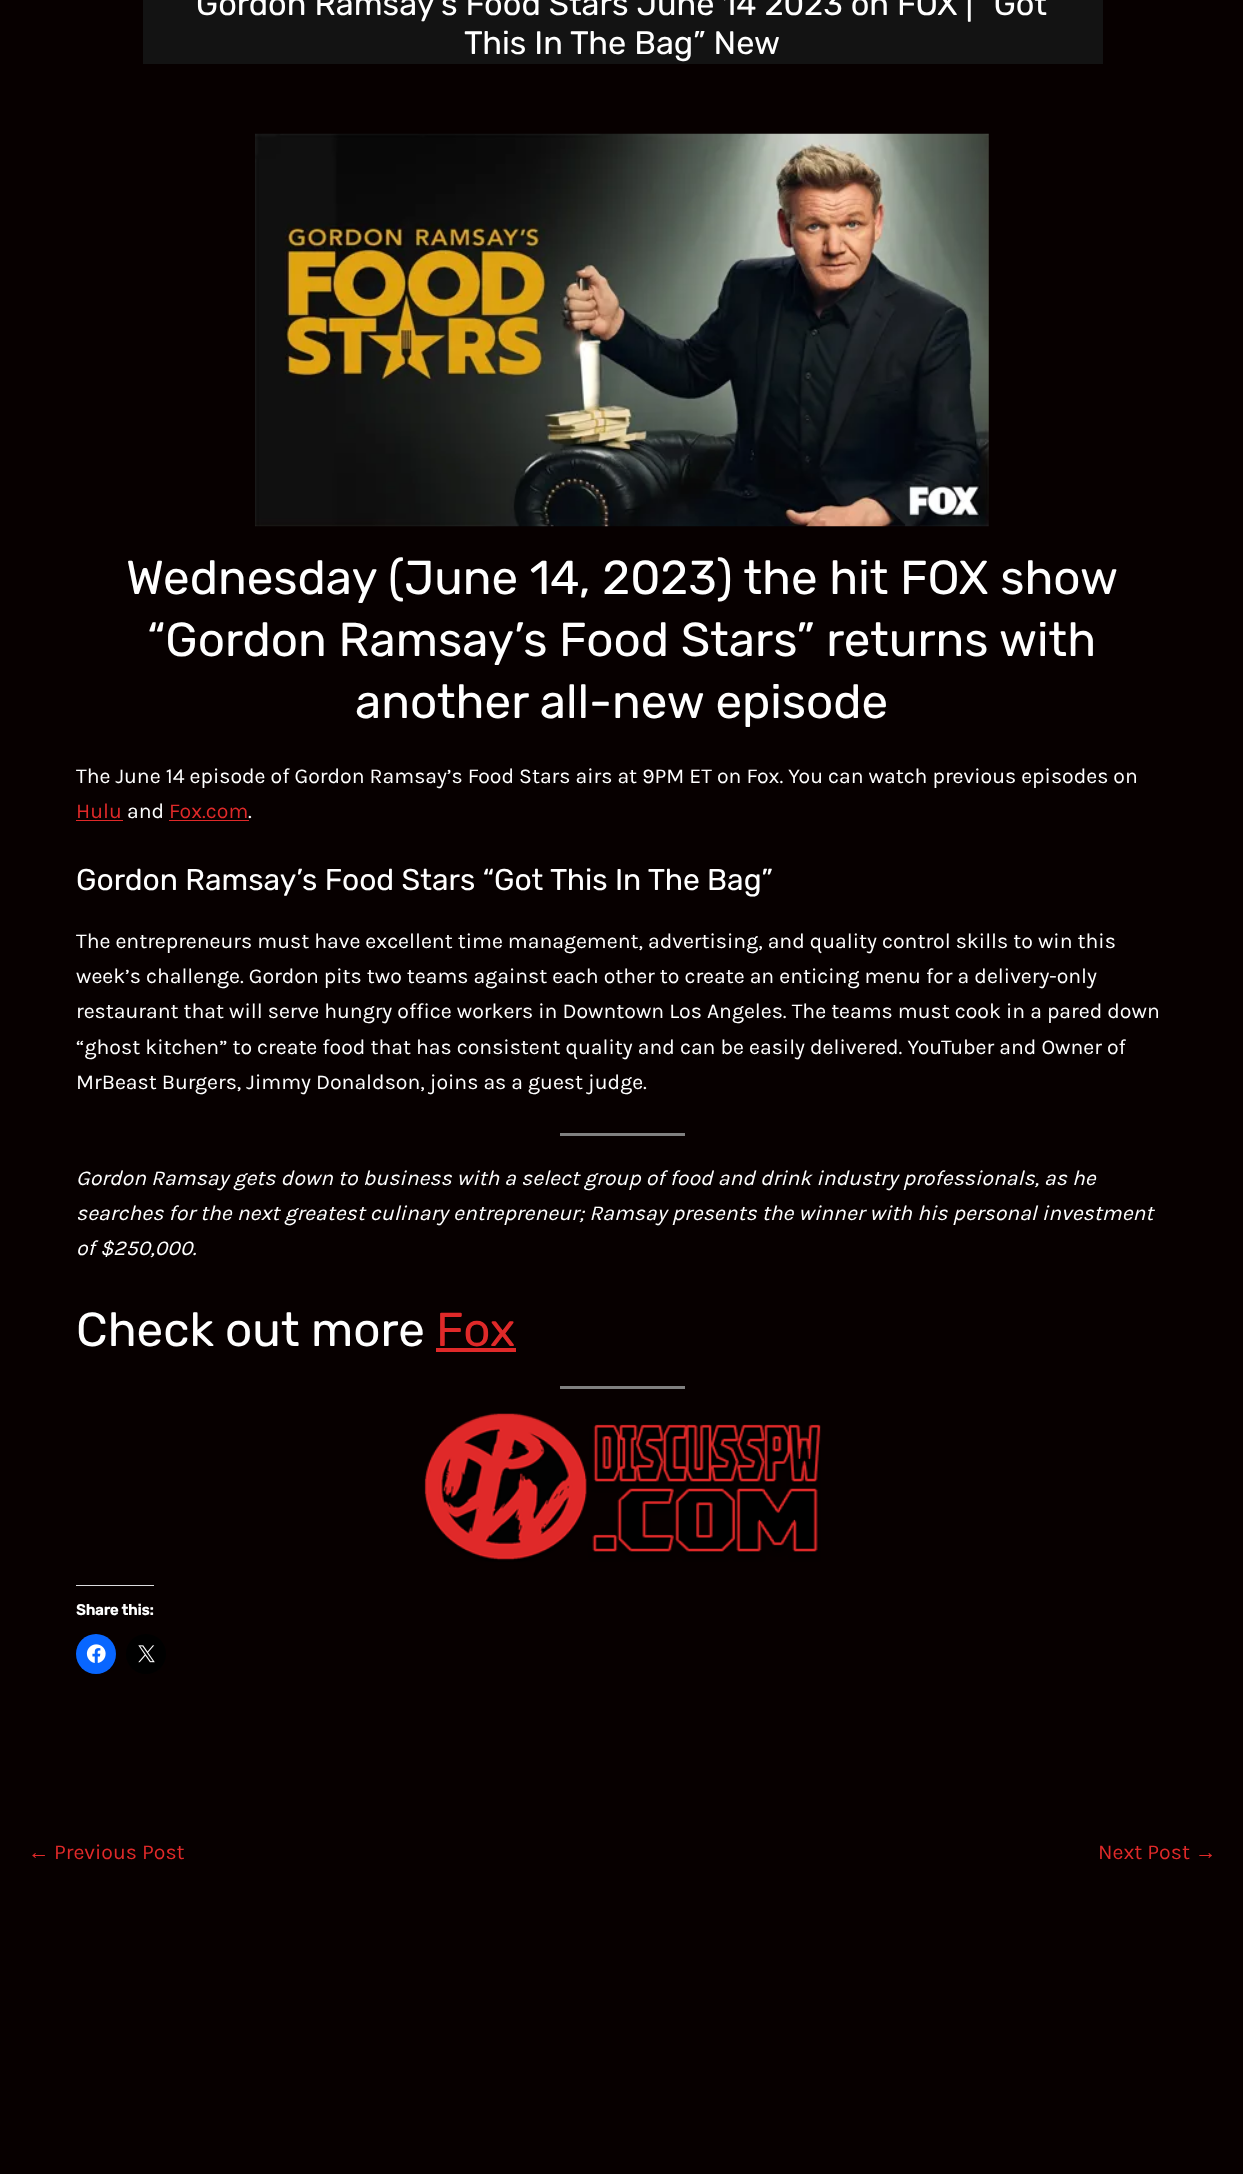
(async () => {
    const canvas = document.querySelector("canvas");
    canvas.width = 1243;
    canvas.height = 2174;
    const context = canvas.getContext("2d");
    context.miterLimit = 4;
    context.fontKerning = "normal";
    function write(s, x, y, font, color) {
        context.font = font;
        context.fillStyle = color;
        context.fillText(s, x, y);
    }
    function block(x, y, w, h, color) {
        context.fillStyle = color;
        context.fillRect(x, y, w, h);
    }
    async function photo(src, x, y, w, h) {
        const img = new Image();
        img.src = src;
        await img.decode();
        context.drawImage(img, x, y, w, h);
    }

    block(0, 0, 1243, 2174, "rgb(7, 0, 0)");
    block(143, 0, 960, 64, "rgb(19, 19, 19)");
    write("Gordon Ramsay’s Food Stars June 14 2023 on FOX | “Got", 196, 15, "32.5px Rubik", "rgb(255, 255, 255)");
    write("This In The Bag” New", 464, 54, "32.5px Rubik", "rgb(255, 255, 255)");
    await photo("media/1.png", 255, 133, 734, 394);
    write("Wednesday (June 14, 2023) the hit FOX show", 126, 594, "47.5px Rubik", "rgb(255, 255, 255)");
    write("“Gordon Ramsay’s Food Stars” returns with", 147, 656, "47.5px Rubik", "rgb(255, 255, 255)");
    write("another all-new episode", 355, 718, "47.5px Rubik", "rgb(255, 255, 255)");
    write("The June 14 episode of Gordon Ramsay’s Food Stars airs at 9PM ET on Fox. You can watch previous episodes on", 76, 783, "21.25px Karla", "rgb(255, 255, 255)");
    write("Hulu", 76, 818, "21.25px Karla", "rgb(224, 41, 41)");
    block(76, 820, 47, 1, "rgb(224, 41, 41)");
    write("and", 127, 818, "21.25px Karla", "rgb(255, 255, 255)");
    write("Fox.com", 169, 818, "21.25px Karla", "rgb(224, 41, 41)");
    block(169, 820, 80, 1, "rgb(224, 41, 41)");
    write(".", 248, 818, "21.25px Karla", "rgb(255, 255, 255)");
    write("Gordon Ramsay’s Food Stars “Got This In The Bag”", 76, 890, "30px Rubik", "rgb(255, 255, 255)");
    write("The entrepreneurs must have excellent time management, advertising, and quality control skills to win this", 76, 948, "21.25px Karla", "rgb(255, 255, 255)");
    write("week’s challenge. Gordon pits two teams against each other to create an enticing menu for a delivery-only", 76, 983, "21.25px Karla", "rgb(255, 255, 255)");
    write("restaurant that will serve hungry office workers in Downtown Los Angeles. The teams must cook in a pared down", 76, 1018, "21.25px Karla", "rgb(255, 255, 255)");
    write("“ghost kitchen” to create food that has consistent quality and can be easily delivered. YouTuber and Owner of", 76, 1054, "21.25px Karla", "rgb(255, 255, 255)");
    write("MrBeast Burgers, Jimmy Donaldson, joins as a guest judge.", 76, 1089, "21.25px Karla", "rgb(255, 255, 255)");
    block(560, 1133, 125, 3, "rgb(128, 128, 128)");
    write("Gordon Ramsay gets down to business with a select group of food and drink industry professionals, as he", 76, 1185, "italic 21.25px Karla", "rgb(255, 255, 255)");
    write("searches for the next greatest culinary entrepreneur; Ramsay presents the winner with his personal investment", 76, 1220, "italic 21.25px Karla", "rgb(255, 255, 255)");
    write("of $250,000.", 76, 1255, "italic 21.25px Karla", "rgb(255, 255, 255)");
    write("Check out more", 76, 1346, "47.5px Rubik", "rgb(255, 255, 255)");
    write("Fox", 436, 1346, "47.5px Rubik", "rgb(224, 41, 41)");
    block(436, 1348, 80, 4, "rgb(224, 41, 41)");
    block(560, 1386, 125, 3, "rgb(128, 128, 128)");
    await photo("media/2.png", 424, 1413, 397, 149);
    block(76, 1585, 78, 1, "rgb(220, 220, 222)");
    write("Share this:", 76, 1615, "bold 15px Rubik", "rgb(255, 255, 255)");
    context.fillStyle = "rgb(8, 102, 255)";
    context.beginPath();
    context.arc(96, 1654, 20, 0, Math.PI * 2);
    context.fill();
    await photo("media/3.png", 86, 1644, 20, 19);
    context.fillStyle = "rgb(0, 0, 0)";
    context.beginPath();
    context.arc(146, 1654, 20, 0, Math.PI * 2);
    context.fill();
    await photo("media/4.png", 138, 1645, 17, 18);
    write("←", 28, 1859, "21.25px Liberation Sans", "rgb(224, 41, 41)");
    write("Previous Post", 54, 1859, "21.25px Karla", "rgb(224, 41, 41)");
    write("Next Post", 1098, 1859, "21.25px Karla", "rgb(224, 41, 41)");
    write("→", 1195, 1859, "21.25px Liberation Sans", "rgb(224, 41, 41)");
})();
